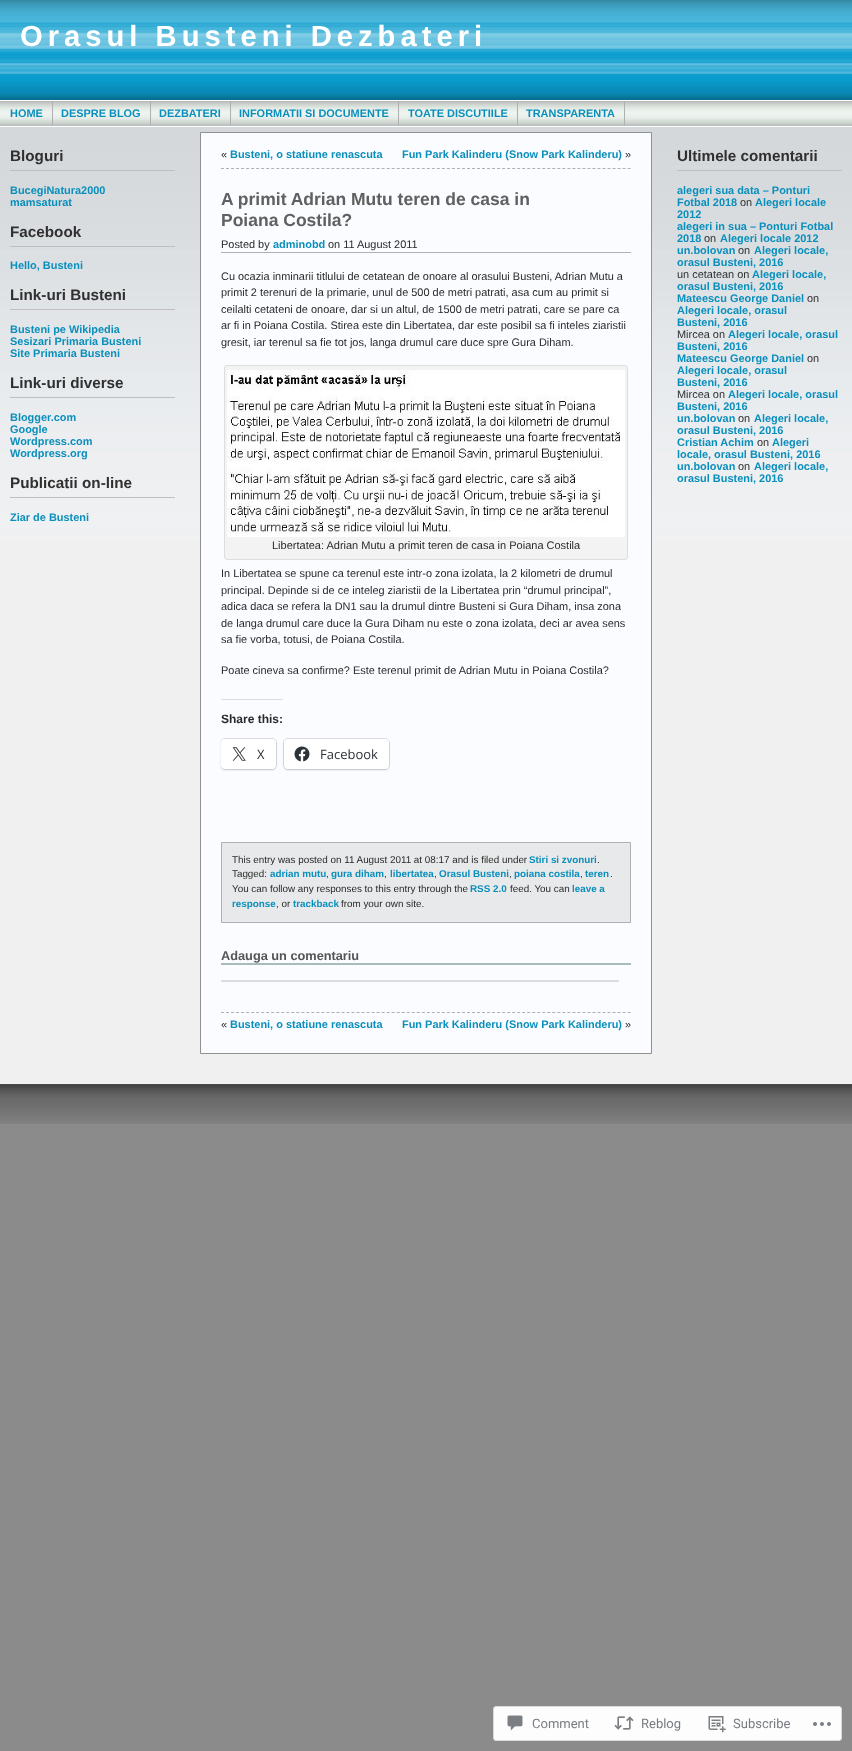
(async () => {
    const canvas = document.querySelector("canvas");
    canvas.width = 852;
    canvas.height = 1751;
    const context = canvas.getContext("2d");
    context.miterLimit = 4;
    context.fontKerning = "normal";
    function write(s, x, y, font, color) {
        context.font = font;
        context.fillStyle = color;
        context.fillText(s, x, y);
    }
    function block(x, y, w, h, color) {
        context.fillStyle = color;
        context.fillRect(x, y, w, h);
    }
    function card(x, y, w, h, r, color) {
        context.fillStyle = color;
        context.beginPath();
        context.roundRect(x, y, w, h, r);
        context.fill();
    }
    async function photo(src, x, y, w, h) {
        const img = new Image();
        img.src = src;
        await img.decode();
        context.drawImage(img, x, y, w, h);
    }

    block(0, 0, 852, 1751, "rgb(139, 139, 139)");
    block(0, 540, 852, 544, "rgb(240, 240, 240)");
    await photo("media/1.png", 0, 0, 852, 540);
    context.letterSpacing = "5px";
    write("Orasul Busteni Dezbateri", 20, 46, "bold 29.2px Liberation Sans", "rgb(255, 255, 255)");
    await photo("media/2.png", 0, 101, 852, 25);
    block(0, 100, 852, 1, "rgb(255, 255, 255)");
    block(0, 126, 852, 1, "rgb(255, 255, 255)");
    context.letterSpacing = "0px";
    write("HOME", 10, 117, "bold 10.95px Liberation Sans", "rgb(10, 143, 188)");
    block(52, 101, 1, 24, "rgb(176, 176, 176)");
    write("DESPRE BLOG", 61, 117, "bold 10.95px Liberation Sans", "rgb(10, 143, 188)");
    block(150, 101, 1, 24, "rgb(176, 176, 176)");
    write("DEZBATERI", 159, 117, "bold 10.95px Liberation Sans", "rgb(10, 143, 188)");
    block(230, 101, 1, 24, "rgb(176, 176, 176)");
    write("INFORMATII SI DOCUMENTE", 239, 117, "bold 10.95px Liberation Sans", "rgb(10, 143, 188)");
    block(398, 101, 1, 24, "rgb(176, 176, 176)");
    write("TOATE DISCUTIILE", 408, 117, "bold 10.95px Liberation Sans", "rgb(10, 143, 188)");
    block(517, 101, 1, 24, "rgb(176, 176, 176)");
    write("TRANSPARENTA", 526, 117, "bold 10.95px Liberation Sans", "rgb(10, 143, 188)");
    block(624, 101, 1, 24, "rgb(176, 176, 176)");
    block(10, 170, 165, 1, "rgb(190, 191, 195)");
    write("Bloguri", 10, 161, "bold 15.25px Liberation Sans", "rgb(48, 48, 48)");
    write("BucegiNatura2000", 10, 194, "bold 10.95px Liberation Sans", "rgb(10, 143, 188)");
    write("mamsaturat", 10, 206, "bold 10.95px Liberation Sans", "rgb(10, 143, 188)");
    block(10, 246, 165, 1, "rgb(190, 191, 195)");
    write("Facebook", 10, 237, "bold 15.25px Liberation Sans", "rgb(48, 48, 48)");
    write("Hello, Busteni", 10, 269, "bold 10.95px Liberation Sans", "rgb(10, 143, 188)");
    block(10, 309, 165, 1, "rgb(190, 191, 195)");
    write("Link-uri Busteni", 10, 300, "bold 15.25px Liberation Sans", "rgb(48, 48, 48)");
    write("Busteni pe Wikipedia", 10, 333, "bold 10.95px Liberation Sans", "rgb(10, 143, 188)");
    write("Sesizari Primaria Busteni", 10, 345, "bold 10.95px Liberation Sans", "rgb(10, 143, 188)");
    write("Site Primaria Busteni", 10, 357, "bold 10.95px Liberation Sans", "rgb(10, 143, 188)");
    block(10, 397, 165, 1, "rgb(190, 191, 195)");
    write("Link-uri diverse", 10, 388, "bold 15.25px Liberation Sans", "rgb(48, 48, 48)");
    write("Blogger.com", 10, 421, "bold 10.95px Liberation Sans", "rgb(10, 143, 188)");
    write("Google", 10, 433, "bold 10.95px Liberation Sans", "rgb(10, 143, 188)");
    write("Wordpress.com", 10, 445, "bold 10.95px Liberation Sans", "rgb(10, 143, 188)");
    write("Wordpress.org", 10, 457, "bold 10.95px Liberation Sans", "rgb(10, 143, 188)");
    block(10, 497, 165, 1, "rgb(190, 191, 195)");
    write("Publicatii on-line", 10, 488, "bold 15.25px Liberation Sans", "rgb(48, 48, 48)");
    write("Ziar de Busteni", 10, 521, "bold 10.95px Liberation Sans", "rgb(10, 143, 188)");
    context.fillStyle = "rgb(250, 252, 255)";
    context.beginPath();
    context.rect(200.5, 132.5, 451, 921);
    context.fill();
    context.strokeStyle = "rgb(144, 144, 144)";
    context.stroke();
    context.beginPath();
    context.moveTo(221, 168.5);
    context.lineTo(631, 168.5);
    context.strokeStyle = "rgb(176, 176, 176)";
    context.setLineDash([3, 2.02]);
    context.stroke();
    write("«", 221, 158, "10.95px Liberation Sans", "rgb(42, 42, 42)");
    write("Busteni, o statiune renascuta", 230, 158, "bold 10.95px Liberation Sans", "rgb(10, 143, 188)");
    write("Fun Park Kalinderu (Snow Park Kalinderu)", 402, 158, "bold 10.95px Liberation Sans", "rgb(10, 143, 188)");
    write("»", 625, 158, "10.95px Liberation Sans", "rgb(42, 42, 42)");
    write("A primit Adrian Mutu teren de casa in", 221, 205, "bold 17.5px Liberation Sans", "rgb(96, 96, 96)");
    write("Poiana Costila?", 221, 226, "bold 17.5px Liberation Sans", "rgb(96, 96, 96)");
    block(221, 252, 410, 1, "rgb(176, 176, 176)");
    write("Posted by", 221, 248, "10.95px Liberation Sans", "rgb(42, 42, 42)");
    write("adminobd", 273, 248, "bold 10.95px Liberation Sans", "rgb(10, 143, 188)");
    write("on 11 August 2011", 328, 248, "10.95px Liberation Sans", "rgb(42, 42, 42)");
    write("Cu ocazia inminarii titlului de cetatean de onoare al orasului Busteni, Adrian Mutu a", 221, 280, "10.95px Liberation Sans", "rgb(42, 42, 42)");
    write("primit 2 terenuri de la primarie, unul de 500 de metri patrati, asa cum au primit si", 221, 296, "10.95px Liberation Sans", "rgb(42, 42, 42)");
    write("ceilalti cetateni de onoare, dar si un altul, de 1500 de metri patrati, care se pare ca", 221, 313, "10.95px Liberation Sans", "rgb(42, 42, 42)");
    write("ar fi in Poiana Costila. Stirea este din Libertatea, dar este posibil sa fi inteles ziaristii", 221, 329, "10.95px Liberation Sans", "rgb(42, 42, 42)");
    write("gresit, iar terenul sa fie tot jos, langa drumul care duce spre Gura Diham.", 221, 346, "10.95px Liberation Sans", "rgb(42, 42, 42)");
    context.fillStyle = "rgb(243, 243, 243)";
    context.beginPath();
    context.roundRect(224.5, 365.5, 403, 194, 2.5);
    context.fill();
    context.strokeStyle = "rgb(221, 221, 221)";
    context.setLineDash([]);
    context.stroke();
    await photo("media/3.png", 227, 370, 398, 167);
    write("Libertatea: Adrian Mutu a primit teren de casa in Poiana Costila", 272, 549, "11px Liberation Sans", "rgb(42, 42, 42)");
    write("In Libertatea se spune ca terenul este intr-o zona izolata, la 2 kilometri de drumul", 221, 577, "10.95px Liberation Sans", "rgb(42, 42, 42)");
    write("principal. Depinde si de ce inteleg ziaristii de la Libertatea prin “drumul principal”,", 221, 594, "10.95px Liberation Sans", "rgb(42, 42, 42)");
    write("adica daca se refera la DN1 sau la drumul dintre Busteni si Gura Diham, insa zona", 221, 610, "10.95px Liberation Sans", "rgb(42, 42, 42)");
    write("de langa drumul care duce la Gura Diham nu este o zona izolata, deci ar avea sens", 221, 627, "10.95px Liberation Sans", "rgb(42, 42, 42)");
    write("sa fie vorba, totusi, de Poiana Costila.", 221, 643, "10.95px Liberation Sans", "rgb(42, 42, 42)");
    write("Poate cineva sa confirme? Este terenul primit de Adrian Mutu in Poiana Costila?", 221, 674, "10.95px Liberation Sans", "rgb(42, 42, 42)");
    block(221, 699, 62, 1, "rgb(220, 220, 222)");
    write("Share this:", 221, 723, "bold 12px Liberation Sans", "rgb(42, 42, 42)");
    context.save();
    context.beginPath();
    context.rect(221, 268, 410, 574);
    context.clip();
    context.beginPath();
    context.roundRect(220.5, 738.5, 56, 31, 4.5);
    context.strokeStyle = "rgb(220, 222, 224)";
    context.stroke();
    context.restore();
    context.fillStyle = "rgba(0, 0, 0, 0.12)";
    context.filter = "blur(1px)";
    context.beginPath();
    context.roundRect(221, 740, 55, 30, 4);
    context.fill();
    context.filter = "none";
    card(221, 739, 55, 30, 4, "rgb(255, 255, 255)");
    await photo("media/4.png", 232, 747, 14, 14);
    write("X", 257, 759, "13px Open Sans", "rgb(44, 51, 56)");
    context.beginPath();
    context.roundRect(283.5, 738.5, 106, 31, 4.5);
    context.strokeStyle = "rgb(220, 222, 224)";
    context.stroke();
    context.fillStyle = "rgba(0, 0, 0, 0.12)";
    context.filter = "blur(1px)";
    context.beginPath();
    context.roundRect(284, 740, 105, 30, 4);
    context.fill();
    context.filter = "none";
    card(284, 739, 105, 30, 4, "rgb(255, 255, 255)");
    await photo("media/5.png", 294, 746, 16, 16);
    write("Facebook", 320, 759, "13px Open Sans", "rgb(44, 51, 56)");
    context.fillStyle = "rgb(232, 233, 234)";
    context.beginPath();
    context.rect(221.5, 842.5, 409, 80);
    context.fill();
    context.strokeStyle = "rgb(176, 176, 176)";
    context.stroke();
    write("This entry was posted on 11 August 2011 at 08:17 and is filed under", 232, 863, "9.85px Liberation Sans", "rgb(42, 42, 42)");
    write("Stiri si zvonuri", 529, 863, "bold 9.85px Liberation Sans", "rgb(10, 143, 188)");
    write(".", 597, 863, "9.85px Liberation Sans", "rgb(42, 42, 42)");
    write("Tagged:", 232, 877, "9.85px Liberation Sans", "rgb(42, 42, 42)");
    write("adrian mutu", 270, 877, "bold 9.85px Liberation Sans", "rgb(10, 143, 188)");
    write(",", 326, 877, "9.85px Liberation Sans", "rgb(42, 42, 42)");
    write("gura diham", 331, 877, "bold 9.85px Liberation Sans", "rgb(10, 143, 188)");
    write(",", 384, 877, "9.85px Liberation Sans", "rgb(42, 42, 42)");
    write("libertatea", 390, 877, "bold 9.85px Liberation Sans", "rgb(10, 143, 188)");
    write(",", 434, 877, "9.85px Liberation Sans", "rgb(42, 42, 42)");
    write("Orasul Busteni", 439, 877, "bold 9.85px Liberation Sans", "rgb(10, 143, 188)");
    write(",", 509, 877, "9.85px Liberation Sans", "rgb(42, 42, 42)");
    write("poiana costila", 514, 877, "bold 9.85px Liberation Sans", "rgb(10, 143, 188)");
    write("teren", 585, 877, "bold 9.85px Liberation Sans", "rgb(10, 143, 188)");
    write(",", 580, 877, "9.85px Liberation Sans", "rgb(42, 42, 42)");
    write(".", 610, 877, "9.85px Liberation Sans", "rgb(42, 42, 42)");
    write("You can follow any responses to this entry through the", 232, 892, "9.85px Liberation Sans", "rgb(42, 42, 42)");
    write("RSS 2.0", 470, 892, "bold 9.85px Liberation Sans", "rgb(10, 143, 188)");
    write("feed. You can", 510, 892, "9.85px Liberation Sans", "rgb(42, 42, 42)");
    write("leave a", 572, 892, "bold 9.85px Liberation Sans", "rgb(10, 143, 188)");
    write("response", 232, 907, "bold 9.85px Liberation Sans", "rgb(10, 143, 188)");
    write(", or", 276, 907, "9.85px Liberation Sans", "rgb(42, 42, 42)");
    write("trackback", 293, 907, "bold 9.85px Liberation Sans", "rgb(10, 143, 188)");
    write("from your own site.", 341, 907, "9.85px Liberation Sans", "rgb(42, 42, 42)");
    block(221, 963, 410, 2, "rgb(170, 187, 187)");
    write("Adauga un comentariu", 221, 960, "bold 12.75px Liberation Sans", "rgb(85, 85, 85)");
    block(221, 980, 398, 2, "rgb(220, 220, 222)");
    context.beginPath();
    context.moveTo(221, 1012.5);
    context.lineTo(631, 1012.5);
    context.setLineDash([3, 2.02]);
    context.stroke();
    write("«", 221, 1028, "10.95px Liberation Sans", "rgb(42, 42, 42)");
    write("Busteni, o statiune renascuta", 230, 1028, "bold 10.95px Liberation Sans", "rgb(10, 143, 188)");
    write("Fun Park Kalinderu (Snow Park Kalinderu)", 402, 1028, "bold 10.95px Liberation Sans", "rgb(10, 143, 188)");
    write("»", 625, 1028, "10.95px Liberation Sans", "rgb(42, 42, 42)");
    block(677, 170, 165, 1, "rgb(190, 191, 195)");
    write("Ultimele comentarii", 677, 161, "bold 15.25px Liberation Sans", "rgb(48, 48, 48)");
    write("alegeri sua data – Ponturi", 677, 194, "bold 10.95px Liberation Sans", "rgb(10, 143, 188)");
    write("Fotbal 2018", 677, 206, "bold 10.95px Liberation Sans", "rgb(10, 143, 188)");
    write("on", 740, 206, "10.95px Liberation Sans", "rgb(48, 48, 48)");
    write("Alegeri locale", 755, 206, "bold 10.95px Liberation Sans", "rgb(10, 143, 188)");
    write("2012", 677, 218, "bold 10.95px Liberation Sans", "rgb(10, 143, 188)");
    write("alegeri in sua – Ponturi Fotbal", 677, 230, "bold 10.95px Liberation Sans", "rgb(10, 143, 188)");
    write("2018", 677, 242, "bold 10.95px Liberation Sans", "rgb(10, 143, 188)");
    write("on", 704, 242, "10.95px Liberation Sans", "rgb(48, 48, 48)");
    write("Alegeri locale 2012", 720, 242, "bold 10.95px Liberation Sans", "rgb(10, 143, 188)");
    write("un.bolovan", 677, 254, "bold 10.95px Liberation Sans", "rgb(10, 143, 188)");
    write("on", 738, 254, "10.95px Liberation Sans", "rgb(48, 48, 48)");
    write("Alegeri locale,", 754, 254, "bold 10.95px Liberation Sans", "rgb(10, 143, 188)");
    write("orasul Busteni, 2016", 677, 266, "bold 10.95px Liberation Sans", "rgb(10, 143, 188)");
    write("un cetatean on", 677, 278, "10.95px Liberation Sans", "rgb(48, 48, 48)");
    write("Alegeri locale,", 752, 278, "bold 10.95px Liberation Sans", "rgb(10, 143, 188)");
    write("orasul Busteni, 2016", 677, 290, "bold 10.95px Liberation Sans", "rgb(10, 143, 188)");
    write("Mateescu George Daniel", 677, 302, "bold 10.95px Liberation Sans", "rgb(10, 143, 188)");
    write("on", 807, 302, "10.95px Liberation Sans", "rgb(48, 48, 48)");
    write("Alegeri locale, orasul", 677, 314, "bold 10.95px Liberation Sans", "rgb(10, 143, 188)");
    write("Busteni, 2016", 677, 326, "bold 10.95px Liberation Sans", "rgb(10, 143, 188)");
    write("Mircea on", 677, 338, "10.95px Liberation Sans", "rgb(48, 48, 48)");
    write("Alegeri locale, orasul", 728, 338, "bold 10.95px Liberation Sans", "rgb(10, 143, 188)");
    write("Busteni, 2016", 677, 350, "bold 10.95px Liberation Sans", "rgb(10, 143, 188)");
    write("Mateescu George Daniel", 677, 362, "bold 10.95px Liberation Sans", "rgb(10, 143, 188)");
    write("on", 807, 362, "10.95px Liberation Sans", "rgb(48, 48, 48)");
    write("Alegeri locale, orasul", 677, 374, "bold 10.95px Liberation Sans", "rgb(10, 143, 188)");
    write("Busteni, 2016", 677, 386, "bold 10.95px Liberation Sans", "rgb(10, 143, 188)");
    write("Mircea on", 677, 398, "10.95px Liberation Sans", "rgb(48, 48, 48)");
    write("Alegeri locale, orasul", 728, 398, "bold 10.95px Liberation Sans", "rgb(10, 143, 188)");
    write("Busteni, 2016", 677, 410, "bold 10.95px Liberation Sans", "rgb(10, 143, 188)");
    write("un.bolovan", 677, 422, "bold 10.95px Liberation Sans", "rgb(10, 143, 188)");
    write("on", 738, 422, "10.95px Liberation Sans", "rgb(48, 48, 48)");
    write("Alegeri locale,", 754, 422, "bold 10.95px Liberation Sans", "rgb(10, 143, 188)");
    write("orasul Busteni, 2016", 677, 434, "bold 10.95px Liberation Sans", "rgb(10, 143, 188)");
    write("Cristian Achim", 677, 446, "bold 10.95px Liberation Sans", "rgb(10, 143, 188)");
    write("on", 757, 446, "10.95px Liberation Sans", "rgb(48, 48, 48)");
    write("Alegeri", 772, 446, "bold 10.95px Liberation Sans", "rgb(10, 143, 188)");
    write("locale, orasul Busteni, 2016", 677, 458, "bold 10.95px Liberation Sans", "rgb(10, 143, 188)");
    write("un.bolovan", 677, 470, "bold 10.95px Liberation Sans", "rgb(10, 143, 188)");
    write("on", 738, 470, "10.95px Liberation Sans", "rgb(48, 48, 48)");
    write("Alegeri locale,", 754, 470, "bold 10.95px Liberation Sans", "rgb(10, 143, 188)");
    write("orasul Busteni, 2016", 677, 482, "bold 10.95px Liberation Sans", "rgb(10, 143, 188)");
    await photo("media/6.png", 0, 1084, 852, 40);
    context.fillStyle = "rgb(253, 253, 253)";
    context.beginPath();
    context.roundRect(493.5, 1706.5, 348, 34, 2.5);
    context.fill();
    context.strokeStyle = "rgb(218, 218, 220)";
    context.setLineDash([]);
    context.stroke();
    await photo("media/7.png", 507, 1715, 16, 16);
    write("Comment", 532, 1728, "13px Roboto", "rgb(120, 124, 130)");
    await photo("media/8.png", 614, 1716, 20, 14);
    write("Reblog", 641, 1728, "13px Roboto", "rgb(120, 124, 130)");
    await photo("media/9.png", 708, 1716, 18, 17);
    write("Subscribe", 733, 1728, "13px Roboto", "rgb(120, 124, 130)");
    await photo("media/10.png", 813, 1722, 18, 4);
})();
